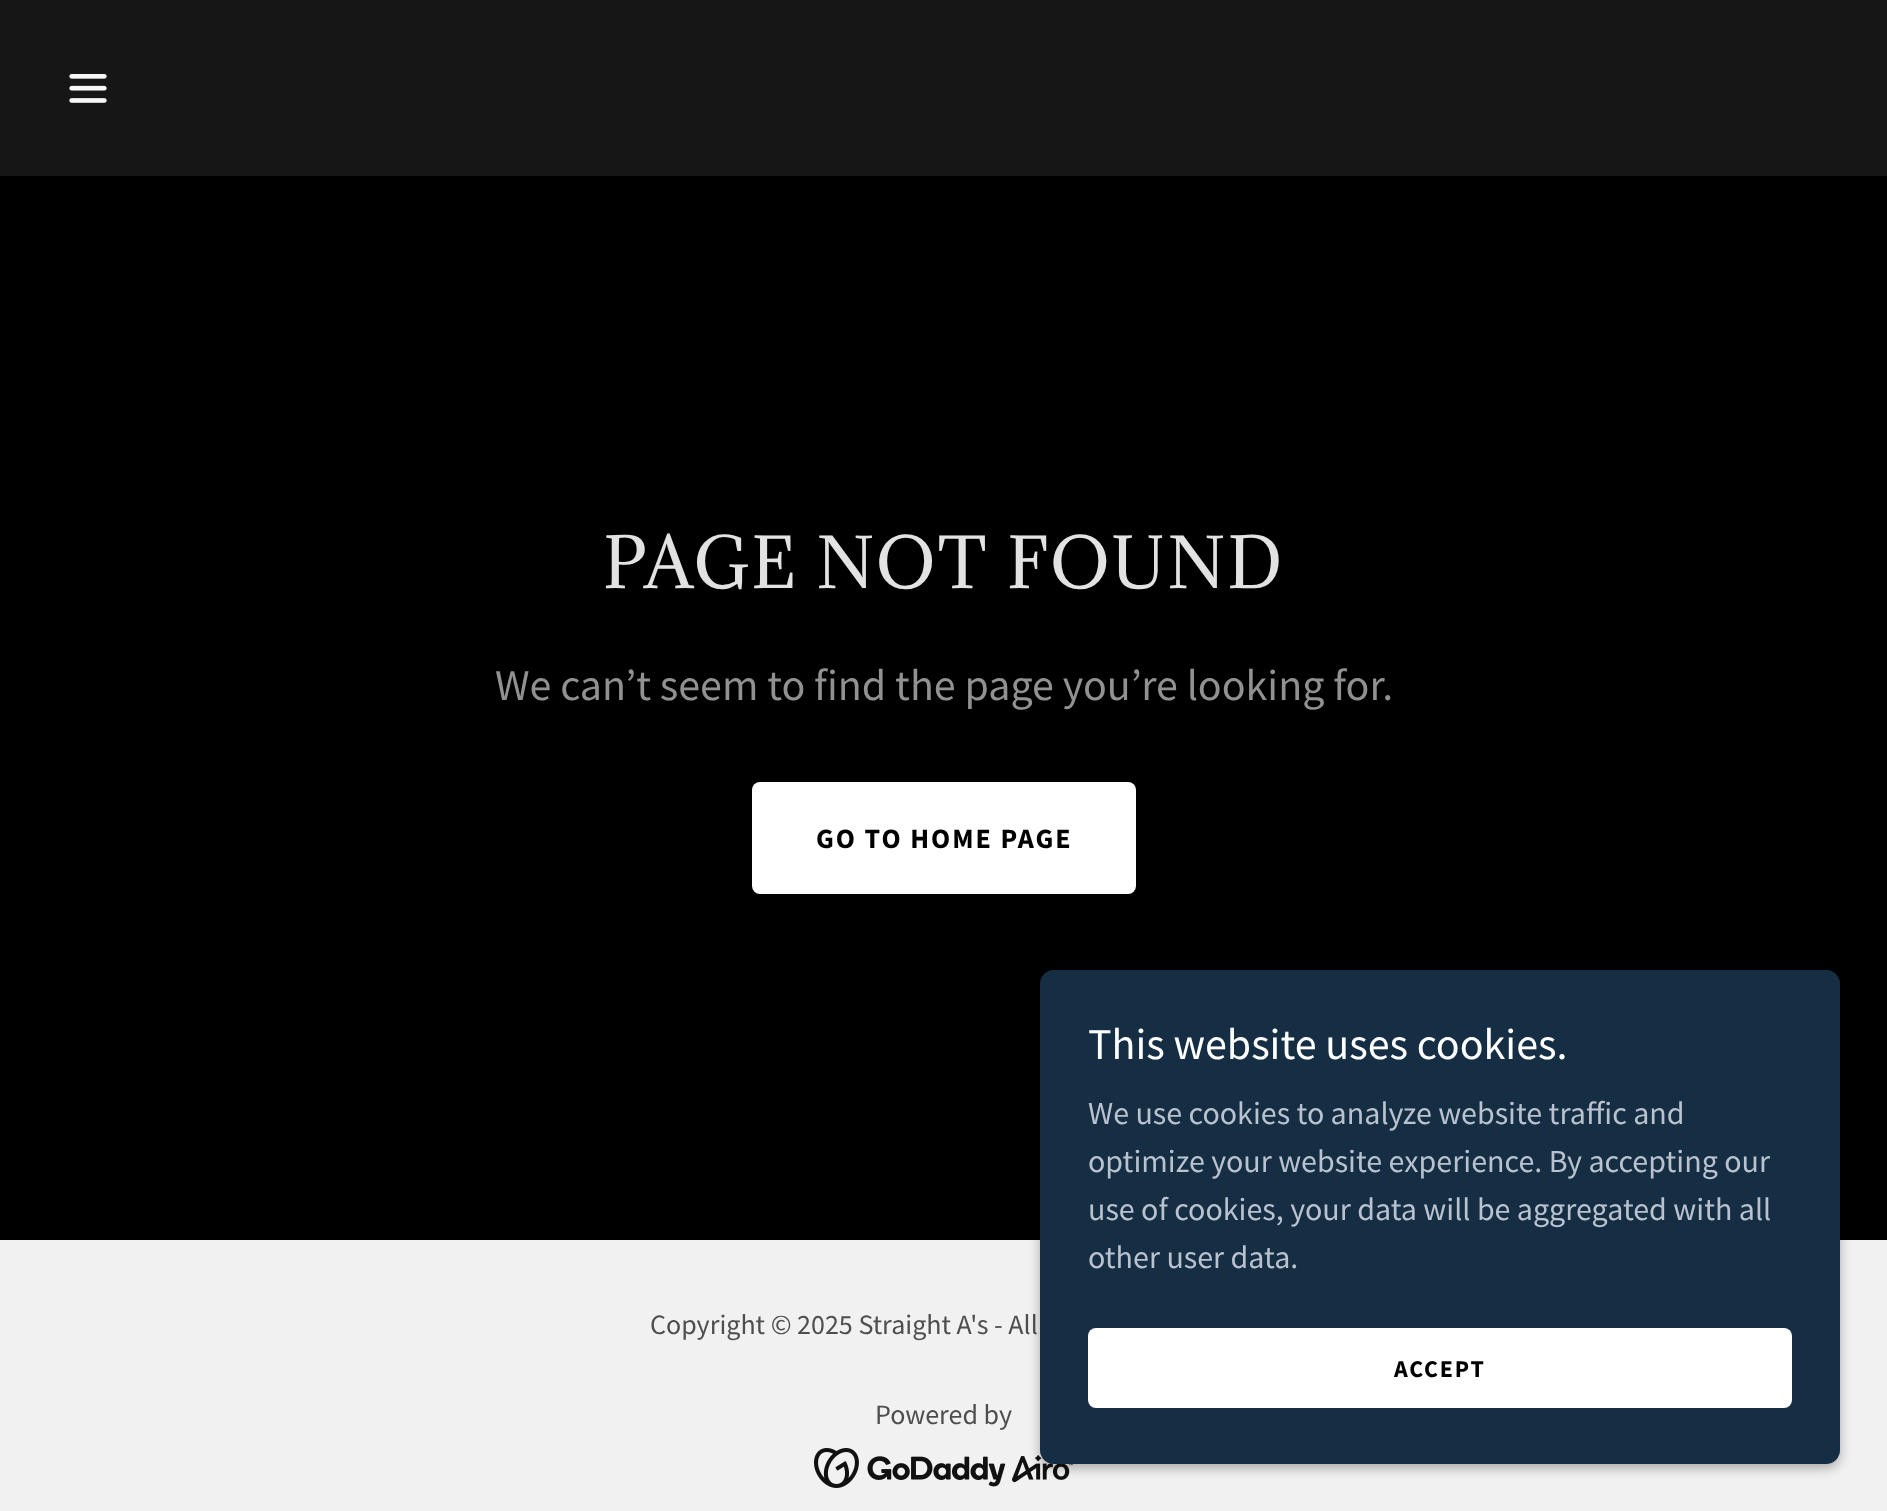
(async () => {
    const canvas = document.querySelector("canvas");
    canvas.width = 1887;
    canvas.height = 1511;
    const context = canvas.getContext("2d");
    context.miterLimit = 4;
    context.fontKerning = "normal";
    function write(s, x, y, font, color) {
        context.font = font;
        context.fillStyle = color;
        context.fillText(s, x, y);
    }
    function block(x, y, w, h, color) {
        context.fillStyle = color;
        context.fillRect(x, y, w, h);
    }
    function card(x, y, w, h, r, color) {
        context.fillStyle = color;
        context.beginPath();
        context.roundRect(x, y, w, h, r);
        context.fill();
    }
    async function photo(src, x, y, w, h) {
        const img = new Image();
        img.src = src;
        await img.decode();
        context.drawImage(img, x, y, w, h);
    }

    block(0, 0, 1887, 1511, "rgb(22, 22, 22)");
    await photo("media/1.png", 69, 74, 38, 29);
    block(0, 176, 1887, 1064, "rgb(0, 0, 0)");
    context.letterSpacing = "2px";
    write("PAGE NOT FOUND", 603, 588, "66px Adamina", "rgb(226, 226, 226)");
    context.letterSpacing = "0px";
    write("We can’t seem to find the page you’re looking for.", 495, 700, "44px Source Sans Pro", "rgb(145, 145, 145)");
    card(752, 782, 384, 112, 8, "rgb(255, 255, 255)");
    context.letterSpacing = "2px";
    write("GO TO HOME PAGE", 816, 848, "bold 28px Source Sans Pro", "rgb(0, 0, 0)");
    block(0, 1240, 1887, 271, "rgb(241, 241, 241)");
    context.letterSpacing = "0px";
    write("Copyright © 2025 Straight A's - All", 650, 1334, "28px Source Sans Pro", "rgb(78, 78, 78)");
    write("Powered by", 875, 1424, "28px Source Sans Pro", "rgb(78, 78, 78)");
    await photo("media/2.png", 814, 1448, 259, 40);
    context.fillStyle = "rgba(0, 0, 0, 0.3)";
    context.filter = "blur(6px)";
    context.beginPath();
    context.roundRect(1040, 974, 800, 494, 14);
    context.fill();
    context.filter = "none";
    card(1040, 970, 800, 494, 14, "rgb(21, 46, 68)");
    write("This website uses cookies.", 1088, 1059, "44px Source Sans Pro", "rgb(255, 255, 255)");
    write("We use cookies to analyze website traffic and", 1088, 1124, "32px Source Sans Pro", "rgb(185, 194, 206)");
    write("optimize your website experience. By accepting our", 1088, 1172, "32px Source Sans Pro", "rgb(185, 194, 206)");
    write("use of cookies, your data will be aggregated with all", 1088, 1220, "32px Source Sans Pro", "rgb(185, 194, 206)");
    write("other user data.", 1088, 1268, "32px Source Sans Pro", "rgb(185, 194, 206)");
    card(1088, 1328, 704, 80, 8, "rgb(255, 255, 255)");
    context.letterSpacing = "1.75px";
    write("ACCEPT", 1394, 1377, "bold 24px Source Sans Pro", "rgb(0, 0, 0)");
})();
